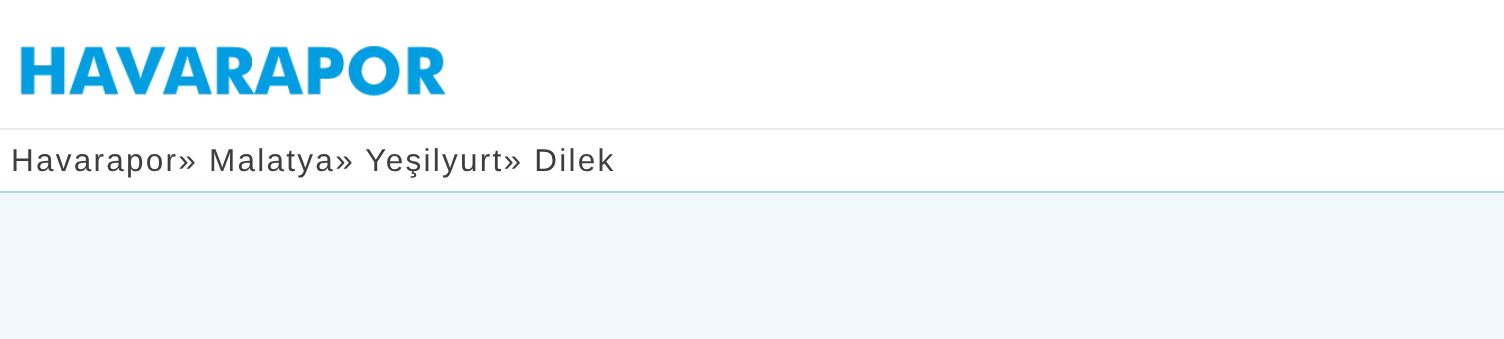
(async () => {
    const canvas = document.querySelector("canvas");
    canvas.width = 1504;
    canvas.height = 339;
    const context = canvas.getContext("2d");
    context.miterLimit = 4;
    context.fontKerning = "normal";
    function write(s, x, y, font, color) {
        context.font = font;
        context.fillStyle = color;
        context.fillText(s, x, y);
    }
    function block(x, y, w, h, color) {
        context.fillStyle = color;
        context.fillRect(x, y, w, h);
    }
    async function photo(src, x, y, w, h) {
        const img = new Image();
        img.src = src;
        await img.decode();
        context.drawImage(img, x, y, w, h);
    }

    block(0, 0, 1504, 339, "rgb(240, 248, 254)");
    block(0, 0, 1504, 194, "rgb(255, 255, 255)");
    block(0, 128, 1504, 2, "rgb(235, 235, 235)");
    await photo("media/1.png", 20, 46, 426, 50);
    block(0, 191, 1504, 2, "rgb(163, 220, 241)");
    context.letterSpacing = "2.25px";
    write("Havarapor» Malatya» Yeşilyurt» Dilek", 11, 171, "31.5px Liberation Sans", "rgb(62, 62, 62)");
})();
